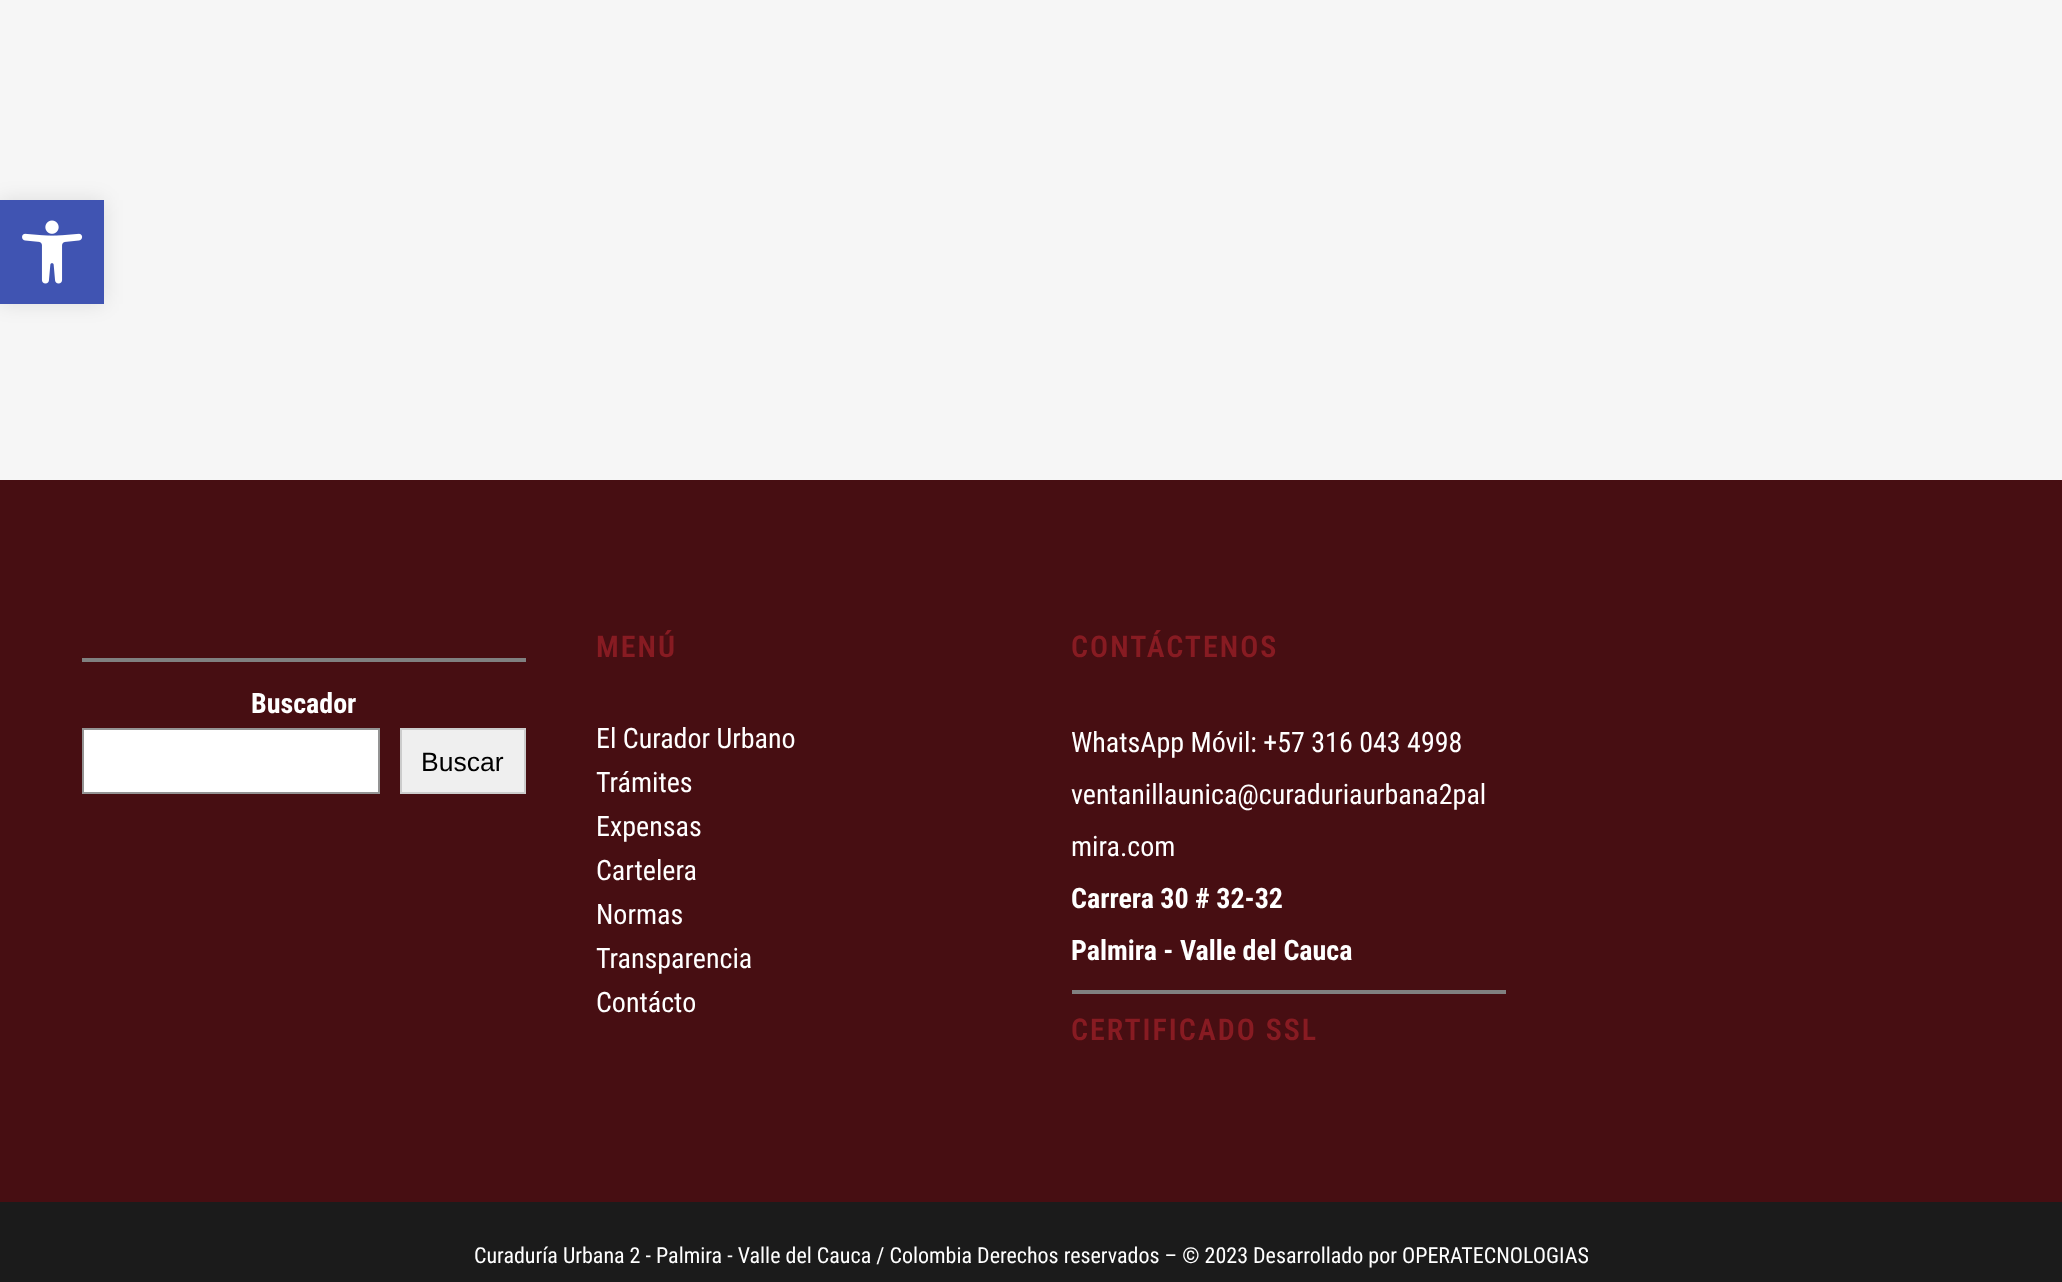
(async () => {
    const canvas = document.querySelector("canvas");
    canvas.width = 2062;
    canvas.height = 1282;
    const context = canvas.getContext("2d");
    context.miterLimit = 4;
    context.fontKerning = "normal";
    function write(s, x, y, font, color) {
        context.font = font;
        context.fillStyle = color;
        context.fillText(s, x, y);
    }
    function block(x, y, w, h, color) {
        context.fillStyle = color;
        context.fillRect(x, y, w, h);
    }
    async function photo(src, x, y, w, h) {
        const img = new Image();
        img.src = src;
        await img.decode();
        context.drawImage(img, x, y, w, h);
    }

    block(0, 0, 2062, 1282, "rgb(246, 246, 246)");
    context.fillStyle = "rgba(0, 0, 0, 0.1)";
    context.filter = "blur(10px)";
    context.beginPath();
    context.rect(0, 200, 104, 104);
    context.fill();
    context.filter = "none";
    block(0, 200, 104, 104, "rgb(64, 84, 178)");
    await photo("media/1.png", 22, 220, 61, 64);
    block(0, 480, 2062, 722, "rgb(71, 14, 18)");
    block(82, 658, 444, 4, "rgb(128, 128, 128)");
    write("Buscador", 251, 713, "bold 28px Roboto Condensed", "rgb(255, 255, 255)");
    context.beginPath();
    context.rect(83, 729, 296, 64);
    context.fill();
    context.strokeStyle = "rgb(148, 148, 148)";
    context.lineWidth = 2;
    context.stroke();
    context.fillStyle = "rgb(239, 239, 239)";
    context.beginPath();
    context.rect(401, 729, 124, 64);
    context.fill();
    context.strokeStyle = "rgb(204, 204, 204)";
    context.stroke();
    write("Buscar", 421, 771, "26.5px Liberation Sans", "rgb(0, 0, 0)");
    context.letterSpacing = "2px";
    write("MENÚ", 596, 657, "600 30px Roboto Condensed", "rgb(135, 27, 34)");
    context.letterSpacing = "0px";
    write("El Curador Urbano", 596, 748, "28px Roboto Condensed", "rgb(255, 255, 255)");
    write("Trámites", 596, 792, "28px Roboto Condensed", "rgb(255, 255, 255)");
    write("Expensas", 596, 836, "28px Roboto Condensed", "rgb(255, 255, 255)");
    write("Cartelera", 596, 880, "28px Roboto Condensed", "rgb(255, 255, 255)");
    write("Normas", 596, 924, "28px Roboto Condensed", "rgb(255, 255, 255)");
    write("Transparencia", 596, 968, "28px Roboto Condensed", "rgb(255, 255, 255)");
    write("Contácto", 596, 1012, "28px Roboto Condensed", "rgb(255, 255, 255)");
    context.letterSpacing = "2px";
    write("CONTÁCTENOS", 1071, 657, "600 30px Roboto Condensed", "rgb(135, 27, 34)");
    context.letterSpacing = "0px";
    write("WhatsApp Móvil: +57 316 043 4998", 1071, 752, "28px Roboto Condensed", "rgb(255, 255, 255)");
    write("ventanillaunica@curaduriaurbana2pal", 1071, 804, "28px Roboto Condensed", "rgb(255, 255, 255)");
    write("mira.com", 1071, 856, "28px Roboto Condensed", "rgb(255, 255, 255)");
    write("Carrera 30 # 32-32", 1071, 908, "bold 28px Roboto Condensed", "rgb(255, 255, 255)");
    write("Palmira - Valle del Cauca", 1071, 960, "bold 28px Roboto Condensed", "rgb(255, 255, 255)");
    block(1072, 990, 434, 4, "rgb(128, 128, 128)");
    context.letterSpacing = "2px";
    write("CERTIFICADO SSL", 1071, 1040, "600 30px Roboto Condensed", "rgb(135, 27, 34)");
    block(0, 1202, 2062, 80, "rgb(27, 27, 27)");
    context.letterSpacing = "0px";
    write("Curaduría Urbana 2 - Palmira - Valle del Cauca / Colombia Derechos reservados – © 2023 Desarrollado por OPERATECNOLOGIAS", 474, 1263, "22px Roboto Condensed", "rgb(255, 255, 255)");
})();
